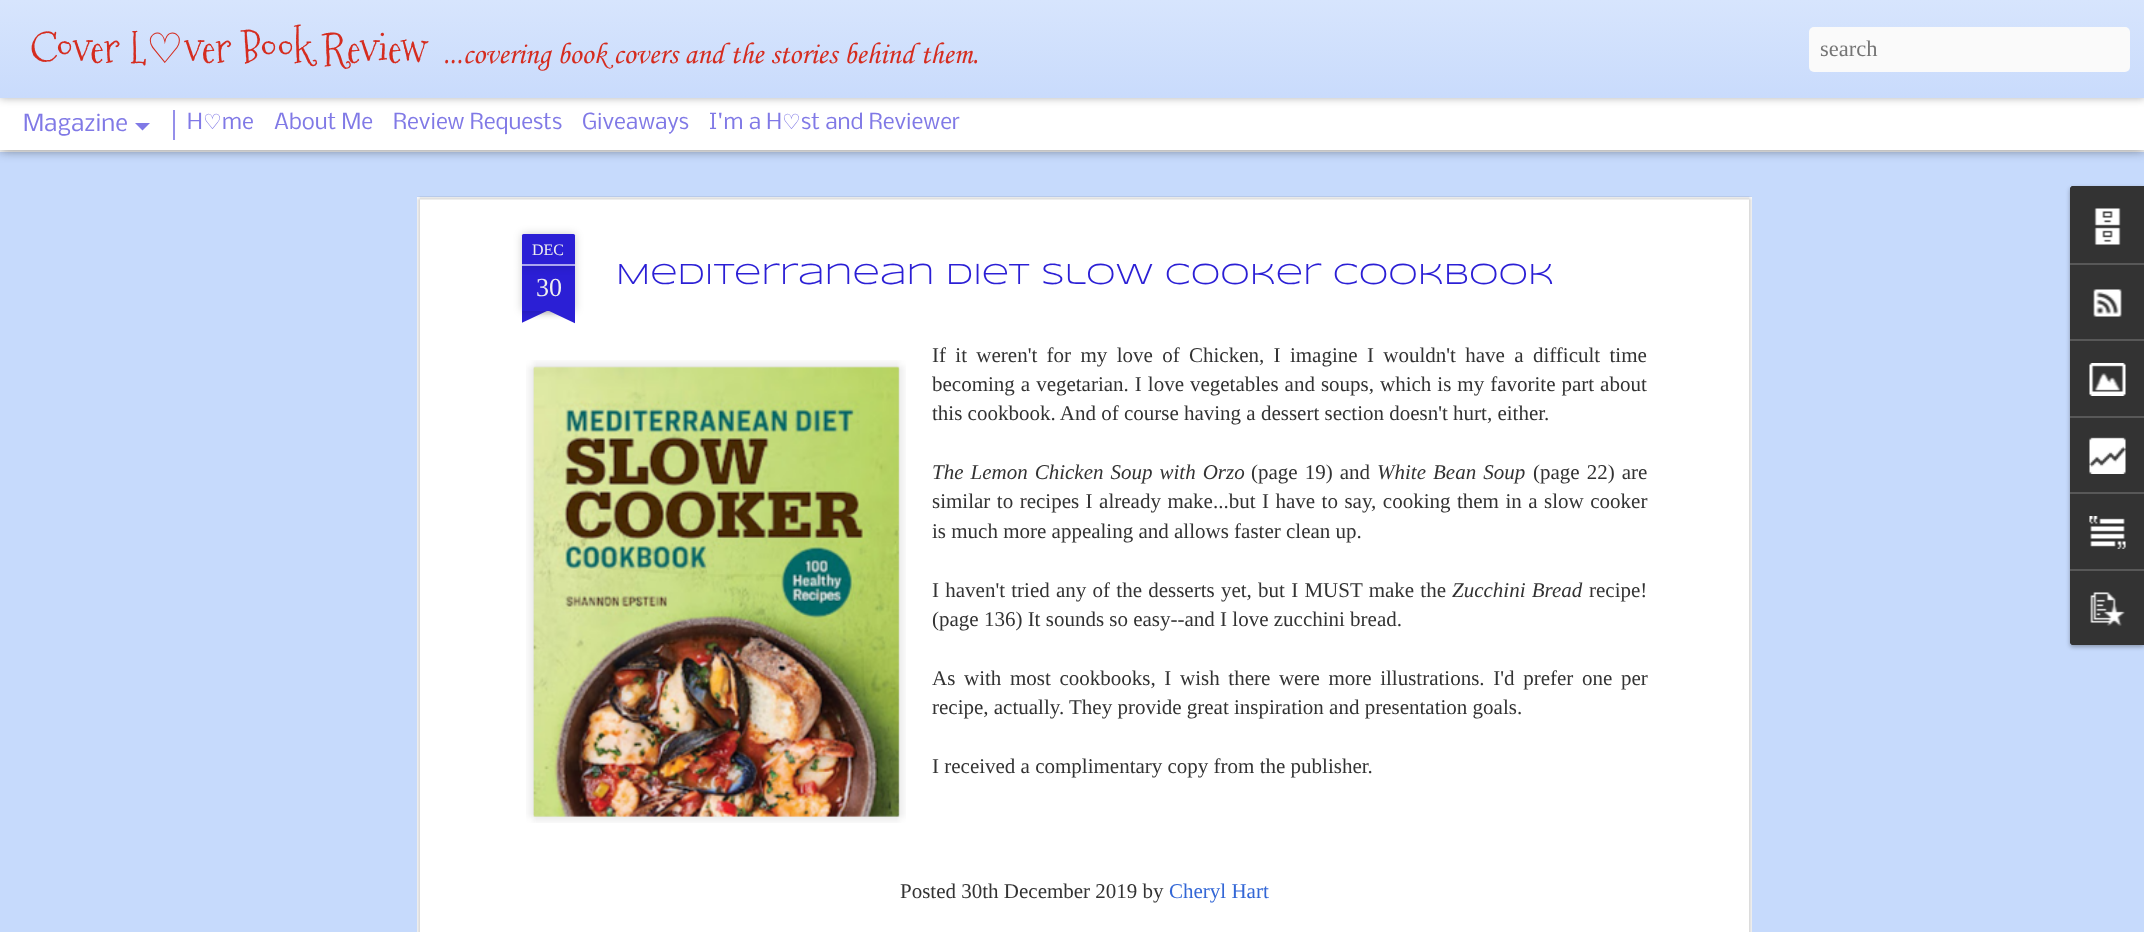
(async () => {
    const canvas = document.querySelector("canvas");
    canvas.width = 2144;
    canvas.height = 932;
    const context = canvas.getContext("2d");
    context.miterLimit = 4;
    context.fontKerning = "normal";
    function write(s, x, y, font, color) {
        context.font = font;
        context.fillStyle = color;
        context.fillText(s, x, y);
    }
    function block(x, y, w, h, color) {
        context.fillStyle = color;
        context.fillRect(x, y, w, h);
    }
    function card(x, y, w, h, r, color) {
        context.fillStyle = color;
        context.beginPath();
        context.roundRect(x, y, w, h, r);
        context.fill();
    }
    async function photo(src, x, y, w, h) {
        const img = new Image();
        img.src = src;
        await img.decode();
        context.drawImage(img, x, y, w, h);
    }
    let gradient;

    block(0, 0, 2144, 932, "rgb(255, 255, 255)");
    block(0, 152, 2144, 780, "rgb(198, 218, 252)");
    context.fillStyle = "rgba(0, 0, 0, 0.5)";
    context.filter = "blur(6px)";
    context.beginPath();
    context.rect(0, 98, 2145, 52);
    context.fill();
    context.filter = "none";
    block(0, 98, 2144, 52, "rgb(255, 255, 255)");
    block(173, 110, 2, 30, "rgb(149, 143, 234)");
    context.fillStyle = "rgba(0, 0, 0, 0.3)";
    context.filter = "blur(4px)";
    context.beginPath();
    context.rect(0, 0, 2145, 98);
    context.fill();
    context.filter = "none";
    gradient = context.createLinearGradient(0, 0, 0, 98);
    gradient.addColorStop(0, "rgb(215, 229, 253)");
    gradient.addColorStop(1, "rgb(201, 219, 252)");
    context.fillStyle = gradient;
    context.fillRect(0, 0, 2144, 98);
    write("Cover L", 30, 63, "42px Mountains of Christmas", "rgb(213, 44, 31)");
    write("♡", 146, 63, "42px DejaVu Sans", "rgb(213, 44, 31)");
    write("ver Book Review", 184, 63, "42px Mountains of Christmas", "rgb(213, 44, 31)");
    write("...covering book covers and the stories behind them.", 443, 63, "30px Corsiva", "rgb(213, 44, 31)");
    card(1809, 27, 321, 45, 5, "rgb(250, 250, 250)");
    write("search", 1820, 56, "22.5px Liberation Serif", "rgb(117, 117, 117)");
    write("Magazine", 23, 131, "22.5px Nobile", "rgb(128, 121, 230)");
    context.beginPath();
    context.moveTo(135, 123);
    context.lineTo(150, 123);
    context.lineTo(142.5, 130.5);
    context.closePath();
    context.fill();
    write("H", 187, 129, "21px Nobile", "rgb(128, 121, 230)");
    write("♡", 203, 129, "21px DejaVu Sans", "rgb(128, 121, 230)");
    write("me", 222, 129, "21px Nobile", "rgb(128, 121, 230)");
    write("About Me", 274, 129, "21px Nobile", "rgb(128, 121, 230)");
    write("Review Requests", 393, 129, "21px Nobile", "rgb(128, 121, 230)");
    write("Giveaways", 582, 129, "21px Nobile", "rgb(128, 121, 230)");
    write("I'm a H", 709, 129, "21px Nobile", "rgb(128, 121, 230)");
    write("♡", 782, 129, "21px DejaVu Sans", "rgb(128, 121, 230)");
    write("st and Reviewer", 801, 129, "21px Nobile", "rgb(128, 121, 230)");
    block(417, 197, 1335, 735, "rgb(255, 255, 255)");
    await photo("media/1.png", 417, 196, 1335, 736);
    context.fillStyle = "rgba(0, 0, 0, 0.2)";
    context.filter = "blur(4px)";
    context.beginPath();
    context.rect(522, 266, 53, 45);
    context.fill();
    context.filter = "none";
    block(522, 266, 53, 45, "rgb(43, 31, 213)");
    context.fillStyle = "rgba(0, 0, 0, 0.2)";
    context.filter = "blur(4px)";
    context.beginPath();
    context.roundRect(522, 234, 53, 32, 1.5);
    context.fill();
    context.filter = "none";
    context.fillStyle = "rgb(43, 31, 213)";
    context.beginPath();
    context.roundRect(522, 234, 53, 32, [1.5, 1.5, 0, 0]);
    context.fill();
    block(522, 264, 53, 2, "rgb(170, 165, 238)");
    write("DEC", 532, 255, "16px Liberation Serif", "rgb(238, 238, 238)");
    write("30", 536, 296, "26px Liberation Serif", "rgb(238, 238, 238)");
    context.save();
    context.beginPath();
    context.rect(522, 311, 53, 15);
    context.clip();
    context.fillStyle = "rgba(0, 0, 0, 0.2)";
    context.filter = "blur(4px)";
    context.beginPath();
    context.rect(509, 296, 75, 15);
    context.fill();
    context.filter = "none";
    context.restore();
    context.save();
    context.beginPath();
    context.rect(522, 311, 53, 15);
    context.clip();
    context.fillStyle = "rgb(43, 31, 213)";
    context.beginPath();
    context.moveTo(509, 312);
    context.lineTo(577, 280);
    context.lineTo(583, 294);
    context.lineTo(515, 326);
    context.closePath();
    context.fill();
    context.restore();
    context.save();
    context.beginPath();
    context.rect(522, 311, 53, 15);
    context.clip();
    context.fillStyle = "rgba(0, 0, 0, 0.2)";
    context.filter = "blur(4px)";
    context.beginPath();
    context.rect(513, 296, 75, 15);
    context.fill();
    context.filter = "none";
    context.restore();
    context.save();
    context.beginPath();
    context.rect(522, 311, 53, 15);
    context.clip();
    context.fillStyle = "rgb(43, 31, 213)";
    context.beginPath();
    context.moveTo(520, 280);
    context.lineTo(588, 312);
    context.lineTo(581, 326);
    context.lineTo(513, 294);
    context.closePath();
    context.fill();
    context.restore();
    write("Mediterranean Diet Slow Cooker Cookbook", 616, 284, "30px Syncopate", "rgb(43, 31, 213)");
    context.wordSpacing = "4.1px";
    write("If it weren't for my love of Chicken, I imagine I wouldn't have a difficult time", 932, 362, "21px Liberation Serif", "rgb(51, 51, 51)");
    await photo("media/2.png", 526, 360, 380, 463);
    await photo("media/3.png", 533, 366, 367, 451);
    context.wordSpacing = "0.75px";
    write("becoming a vegetarian. I love vegetables and soups, which is my favorite part about", 932, 391, "21px Liberation Serif", "rgb(51, 51, 51)");
    context.wordSpacing = "0px";
    write("this cookbook. And of course having a dessert section doesn't hurt, either.", 932, 420, "21px Liberation Serif", "rgb(51, 51, 51)");
    context.wordSpacing = "1.75px";
    write("The Lemon Chicken Soup with Orzo", 932, 479, "italic 21px Liberation Serif", "rgb(51, 51, 51)");
    write("(page 19) and", 1251, 479, "21px Liberation Serif", "rgb(51, 51, 51)");
    write("White Bean Soup", 1377, 479, "italic 21px Liberation Serif", "rgb(51, 51, 51)");
    write("(page 22) are", 1533, 479, "21px Liberation Serif", "rgb(51, 51, 51)");
    context.wordSpacing = "1.25px";
    write("similar to recipes I already make...but I have to say, cooking them in a slow cooker", 932, 508, "21px Liberation Serif", "rgb(51, 51, 51)");
    context.wordSpacing = "0px";
    write("is much more appealing and allows faster clean up.", 932, 538, "21px Liberation Serif", "rgb(51, 51, 51)");
    context.wordSpacing = "1px";
    write("I haven't tried any of the desserts yet, but I MUST make the", 932, 597, "21px Liberation Serif", "rgb(51, 51, 51)");
    write("Zucchini Bread", 1452, 597, "italic 21px Liberation Serif", "rgb(51, 51, 51)");
    context.wordSpacing = "0px";
    write("recipe!", 1589, 597, "21px Liberation Serif", "rgb(51, 51, 51)");
    write("(page 136) It sounds so easy--and I love zucchini bread.", 932, 626, "21px Liberation Serif", "rgb(51, 51, 51)");
    context.wordSpacing = "3.4px";
    write("As with most cookbooks, I wish there were more illustrations. I'd prefer one per", 932, 685, "21px Liberation Serif", "rgb(51, 51, 51)");
    context.wordSpacing = "0px";
    write("recipe, actually. They provide great inspiration and presentation goals.", 932, 714, "21px Liberation Serif", "rgb(51, 51, 51)");
    write("I received a complimentary copy from the publisher.", 932, 773, "21px Liberation Serif", "rgb(51, 51, 51)");
    write("Posted 30th December 2019 by", 900, 898, "21px Liberation Serif", "rgb(51, 51, 51)");
    write("Cheryl Hart", 1169, 898, "21px Liberation Serif", "rgb(51, 103, 214)");
    context.fillStyle = "rgba(0, 0, 0, 0.3)";
    context.filter = "blur(2px)";
    context.beginPath();
    context.roundRect(2070, 188, 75, 459, 3);
    context.fill();
    context.filter = "none";
    context.fillStyle = "rgb(51, 51, 51)";
    context.beginPath();
    context.moveTo(2073, 186);
    context.lineTo(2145, 186);
    context.lineTo(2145, 645);
    context.lineTo(2073, 645);
    context.bezierCurveTo(2071.5, 645, 2070, 643.5, 2070, 642);
    context.lineTo(2070, 189);
    context.bezierCurveTo(2070, 187.5, 2071.5, 186, 2073, 186);
    context.closePath();
    context.fill();
    context.beginPath();
    context.moveTo(2073, 186);
    context.lineTo(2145, 186);
    context.lineTo(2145, 263);
    context.lineTo(2070, 263);
    context.lineTo(2070, 189);
    context.bezierCurveTo(2070, 187.5, 2071.5, 186, 2073, 186);
    context.closePath();
    context.fill();
    await photo("media/4.png", 2094, 208, 27, 37);
    block(2070, 263, 74, 2, "rgb(88, 88, 88)");
    await photo("media/5.png", 2093, 289, 29, 28);
    block(2070, 339, 74, 2, "rgb(88, 88, 88)");
    await photo("media/6.png", 2089, 363, 37, 33);
    block(2070, 416, 74, 2, "rgb(88, 88, 88)");
    await photo("media/7.png", 2089, 437, 37, 37);
    block(2070, 492, 74, 2, "rgb(88, 88, 88)");
    await photo("media/8.png", 2089, 516, 37, 33);
    context.fillStyle = "rgb(51, 51, 51)";
    context.beginPath();
    context.moveTo(2070, 569);
    context.lineTo(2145, 569);
    context.lineTo(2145, 645);
    context.lineTo(2073, 645);
    context.bezierCurveTo(2071.5, 645, 2070, 643.5, 2070, 642);
    context.closePath();
    context.fill();
    block(2070, 569, 74, 2, "rgb(88, 88, 88)");
    await photo("media/9.png", 2090, 592, 35, 34);
})();
